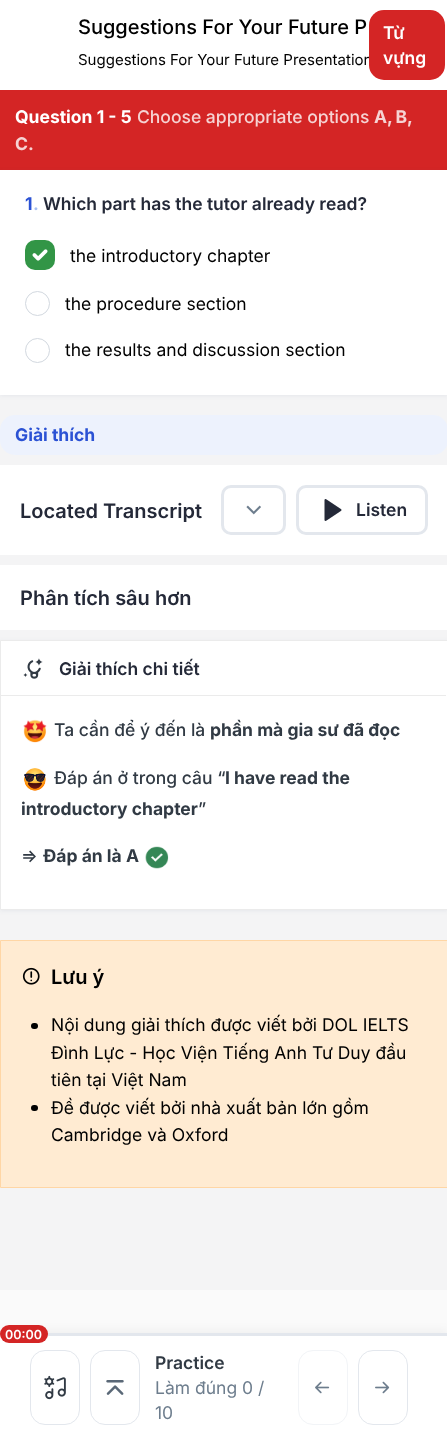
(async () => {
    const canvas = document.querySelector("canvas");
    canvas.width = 447;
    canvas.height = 1440;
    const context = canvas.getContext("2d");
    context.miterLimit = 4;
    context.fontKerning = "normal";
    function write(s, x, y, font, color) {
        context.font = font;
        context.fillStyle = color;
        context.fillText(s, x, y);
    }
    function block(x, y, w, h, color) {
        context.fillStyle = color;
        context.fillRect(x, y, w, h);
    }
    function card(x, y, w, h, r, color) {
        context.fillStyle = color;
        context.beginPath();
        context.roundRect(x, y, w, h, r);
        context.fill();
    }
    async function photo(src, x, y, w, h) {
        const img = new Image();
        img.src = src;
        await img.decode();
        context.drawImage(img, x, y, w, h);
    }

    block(0, 0, 447, 1440, "rgb(250, 250, 250)");
    block(0, 395, 447, 895, "rgb(244, 244, 245)");
    block(0, 0, 447, 90, "rgb(255, 255, 255)");
    write("Suggestions For Your Future P", 78, 34, "500 20px Inter", "rgb(0, 0, 0)");
    context.save();
    context.beginPath();
    context.rect(78, 48, 291, 25);
    context.clip();
    write("Suggestions For Your Future Presentation", 78, 65, "15px Inter", "rgb(0, 0, 0)");
    context.restore();
    card(369, 10, 76, 70, 15, "rgb(212, 37, 37)");
    write("Từ", 383, 39, "600 17.5px Inter", "rgb(255, 255, 255)");
    write("vựng", 383, 64, "600 17.5px Inter", "rgb(255, 255, 255)");
    block(0, 90, 447, 80, "rgb(212, 37, 37)");
    write("Question 1 - 5", 15, 123, "bold 17.5px Inter", "rgb(255, 255, 255)");
    write("Choose appropriate options", 137, 123, "500 17.5px Inter", "rgb(246, 211, 211)");
    context.wordSpacing = "-1px";
    write("A, B,", 374, 123, "bold 17.5px Inter", "rgb(246, 211, 211)");
    context.wordSpacing = "0px";
    write("C.", 15, 150, "bold 17.5px Inter", "rgb(246, 211, 211)");
    context.fillStyle = "rgba(48, 64, 120, 0.07)";
    context.filter = "blur(2px)";
    context.beginPath();
    context.rect(0, 171, 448, 225);
    context.fill();
    context.filter = "none";
    block(0, 170, 447, 225, "rgb(255, 255, 255)");
    write("1", 25, 210, "bold 17.5px Inter", "rgb(43, 82, 212)");
    write(".", 33, 210, "bold 17.5px Inter", "rgb(167, 191, 241)");
    write("Which part has the tutor already read?", 43, 210, "600 17.5px Inter", "rgb(36, 41, 56)");
    card(25, 240, 30, 30, 10, "rgb(50, 149, 70)");
    await photo("media/1.png", 32, 249, 16, 12);
    write("the introductory chapter", 70, 262, "17.5px Inter", "rgb(0, 0, 0)");
    context.beginPath();
    context.arc(37.5, 303.5, 12, 0, Math.PI * 2);
    context.strokeStyle = "rgb(210, 216, 223)";
    context.stroke();
    write("the procedure section", 65, 310, "17.5px Inter", "rgb(0, 0, 0)");
    context.beginPath();
    context.arc(37.5, 350.5, 12, 0, Math.PI * 2);
    context.stroke();
    write("the results and discussion section", 65, 356, "17.5px Inter", "rgb(0, 0, 0)");
    card(0, 415, 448, 40, 15, "rgb(237, 242, 253)");
    write("Giải thích", 15, 441, "bold 17.5px Inter", "rgb(43, 82, 212)");
    block(0, 465, 447, 90, "rgb(255, 255, 255)");
    write("Located Transcript", 20, 518, "600 20px Inter", "rgb(36, 41, 56)");
    context.beginPath();
    context.roundRect(222.5, 486.5, 62, 47, 8.5);
    context.strokeStyle = "rgb(227, 231, 237)";
    context.lineWidth = 3;
    context.stroke();
    await photo("media/2.png", 246, 505, 15, 10);
    context.beginPath();
    context.roundRect(297.5, 486.5, 129, 47, 8.5);
    context.stroke();
    await photo("media/3.png", 324, 499, 18, 22);
    write("Listen", 356, 516, "600 17.5px Inter", "rgb(36, 41, 56)");
    block(0, 565, 447, 65, "rgb(255, 255, 255)");
    write("Phân tích sâu hơn", 20, 605, "600 20px Inter", "rgb(36, 41, 56)");
    context.fillStyle = "rgba(48, 64, 120, 0.07)";
    context.filter = "blur(2px)";
    context.beginPath();
    context.rect(0, 641, 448, 270);
    context.fill();
    context.filter = "none";
    context.fillStyle = "rgb(255, 255, 255)";
    context.beginPath();
    context.rect(0.5, 640.5, 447, 269);
    context.fill();
    context.strokeStyle = "rgb(235, 235, 235)";
    context.lineWidth = 1;
    context.stroke();
    block(1, 695, 445, 1, "rgb(235, 235, 235)");
    await photo("media/4.png", 23, 658, 20, 21);
    write("Giải thích chi tiết", 59, 675, "600 17.5px Inter", "rgb(36, 41, 56)");
    await photo("media/5.png", 23, 719, 24, 24);
    write("Ta cần để ý đến là", 54, 736, "500 17.5px Inter", "rgb(49, 58, 68)");
    write("phần mà gia sư đã đọc", 210, 736, "bold 17.5px Inter", "rgb(49, 58, 68)");
    await photo("media/6.png", 24, 768, 22, 23);
    write("Đáp án ở trong câu “", 54, 784, "500 17.5px Inter", "rgb(49, 58, 68)");
    write("I have read the", 225, 784, "bold 17.5px Inter", "rgb(49, 58, 68)");
    write("introductory chapter", 21, 815, "bold 17.5px Inter", "rgb(49, 58, 68)");
    write("”", 198, 815, "500 17.5px Inter", "rgb(49, 58, 68)");
    write("=>", 21, 862, "500 17.5px Inter", "rgb(49, 58, 68)");
    write("Đáp án là A", 43, 862, "bold 17.5px Inter", "rgb(49, 58, 68)");
    await photo("media/7.png", 145, 846, 24, 23);
    context.fillStyle = "rgb(255, 235, 210)";
    context.beginPath();
    context.rect(0.5, 940.5, 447, 247);
    context.fill();
    context.strokeStyle = "rgb(255, 214, 165)";
    context.stroke();
    await photo("media/8.png", 22, 967, 18, 18);
    write("Lưu ý", 51, 984, "600 20px Inter", "rgb(0, 0, 0)");
    card(31, 1023, 7, 6, 3, "rgb(0, 0, 0)");
    write("Nội dung giải thích được viết bởi DOL IELTS", 51, 1031, "17.5px Inter", "rgb(0, 0, 0)");
    write("Đình Lực - Học Viện Tiếng Anh Tư Duy đầu", 51, 1059, "17.5px Inter", "rgb(0, 0, 0)");
    write("tiên tại Việt Nam", 51, 1086, "17.5px Inter", "rgb(0, 0, 0)");
    card(31, 1105, 7, 6, 3, "rgb(0, 0, 0)");
    write("Đề được viết bởi nhà xuất bản lớn gồm", 51, 1114, "17.5px Inter", "rgb(0, 0, 0)");
    write("Cambridge và Oxford", 51, 1141, "17.5px Inter", "rgb(0, 0, 0)");
    context.fillStyle = "rgba(0, 0, 0, 0.04)";
    context.filter = "blur(5px)";
    context.beginPath();
    context.rect(0, 1330, 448, 105);
    context.fill();
    context.filter = "none";
    block(0, 1333, 447, 3, "rgb(227, 231, 237)");
    block(0, 1336, 447, 104, "rgb(255, 255, 255)");
    card(0, 1325, 48, 18, 9, "rgb(212, 37, 37)");
    write("00:00", 5, 1339, "600 12.5px Inter", "rgb(255, 255, 255)");
    await photo("media/9.png", 44, 1375, 22, 25);
    context.beginPath();
    context.roundRect(30.5, 1350.5, 49, 74, 14.5);
    context.strokeStyle = "rgb(227, 231, 237)";
    context.stroke();
    await photo("media/10.png", 106, 1380, 18, 15);
    context.beginPath();
    context.roundRect(90.5, 1350.5, 49, 74, 14.5);
    context.stroke();
    write("Practice", 155, 1369, "600 17.5px Inter", "rgb(49, 58, 68)");
    write("Làm đúng 0 /", 155, 1394, "17.5px Inter", "rgb(109, 125, 141)");
    write("10", 155, 1419, "17.5px Inter", "rgb(109, 125, 141)");
    await photo("media/11.png", 315, 1381, 15, 13);
    context.beginPath();
    context.roundRect(298.5, 1350.5, 49, 74, 14.5);
    context.strokeStyle = "rgb(242, 244, 247)";
    context.stroke();
    await photo("media/12.png", 375, 1381, 15, 13);
    context.beginPath();
    context.roundRect(358.5, 1350.5, 49, 74, 14.5);
    context.strokeStyle = "rgb(227, 231, 237)";
    context.stroke();
})();
